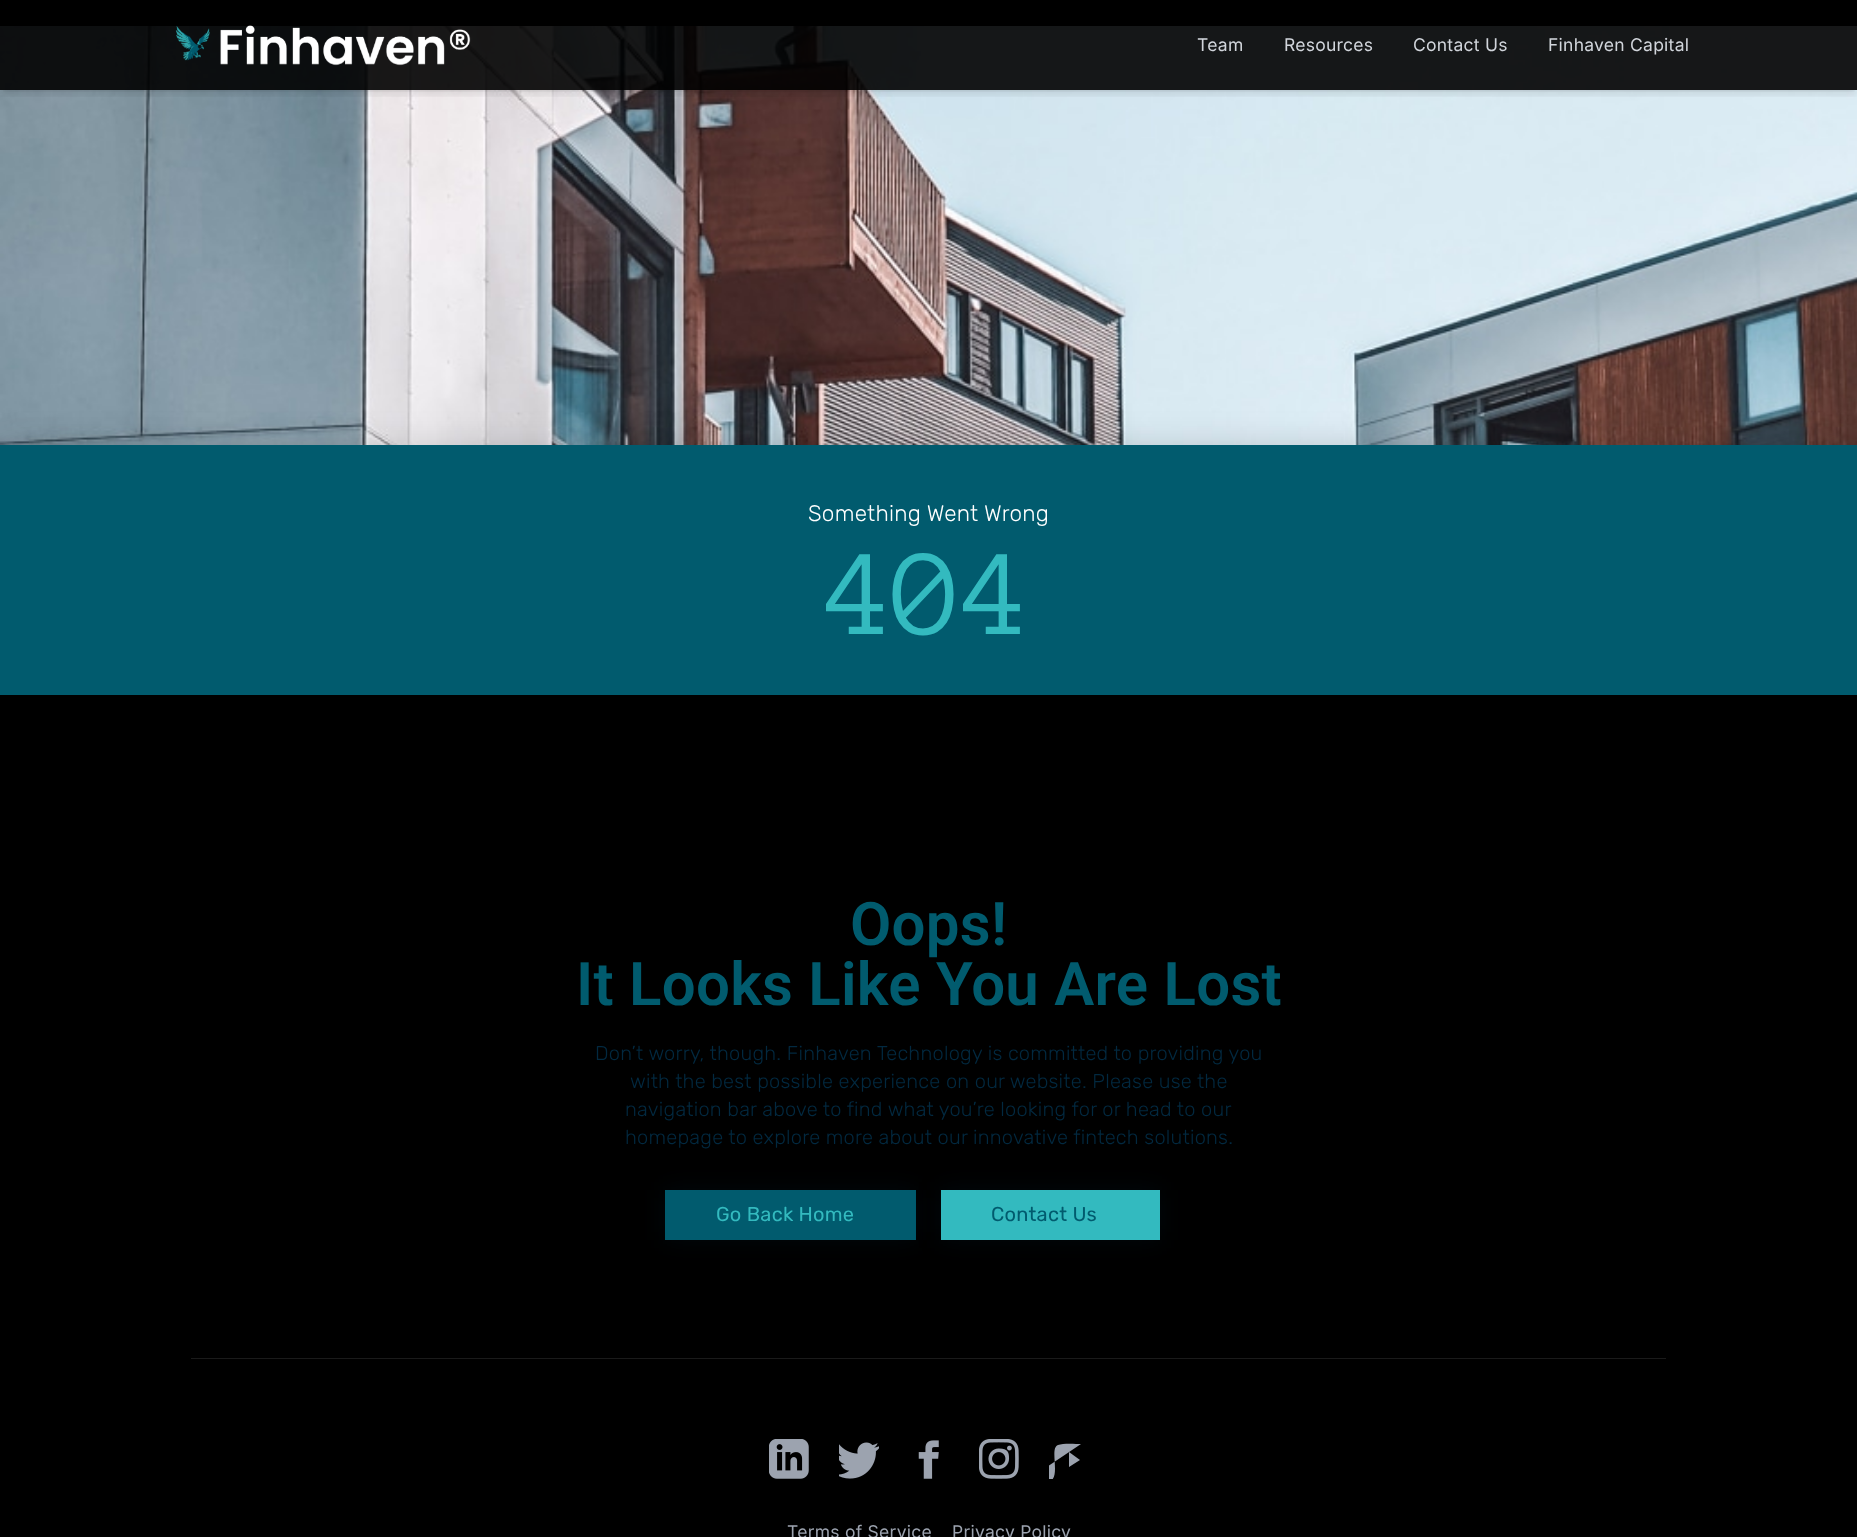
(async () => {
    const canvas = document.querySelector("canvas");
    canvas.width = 1857;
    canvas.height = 1537;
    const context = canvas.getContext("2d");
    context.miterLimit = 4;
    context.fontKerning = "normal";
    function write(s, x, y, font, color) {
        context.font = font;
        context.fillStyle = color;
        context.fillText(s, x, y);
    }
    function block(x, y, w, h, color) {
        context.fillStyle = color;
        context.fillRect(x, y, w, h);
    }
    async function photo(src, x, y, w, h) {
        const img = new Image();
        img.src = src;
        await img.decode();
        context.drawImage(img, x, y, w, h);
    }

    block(0, 0, 1857, 1537, "rgb(0, 0, 0)");
    await photo("media/2.png", 0, 26, 1857, 419);
    context.save();
    context.beginPath();
    context.rect(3, 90, 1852, 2);
    context.clip();
    context.fillStyle = "rgba(0, 0, 0, 0.1)";
    context.filter = "blur(2.5px)";
    context.beginPath();
    context.rect(3, 5, 1852, 85);
    context.fill();
    context.filter = "none";
    context.restore();
    context.save();
    context.beginPath();
    context.rect(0, 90, 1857, 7);
    context.clip();
    context.fillStyle = "rgba(0, 0, 0, 0.1)";
    context.filter = "blur(4px)";
    context.beginPath();
    context.rect(1, 6, 1855, 88);
    context.fill();
    context.filter = "none";
    context.restore();
    block(0, 26, 1857, 64, "rgba(0, 0, 0, 0.9)");
    await photo("media/1.png", 175, 25, 296, 41);
    context.letterSpacing = "0.25px";
    write("Team", 1197, 51, "17.5px Inter", "rgb(209, 213, 219)");
    write("Resources", 1284, 51, "17.5px Inter", "rgb(209, 213, 219)");
    write("Contact Us", 1413, 51, "17.5px Inter", "rgb(209, 213, 219)");
    write("Finhaven Capital", 1548, 51, "17.5px Inter", "rgb(209, 213, 219)");
    context.fillStyle = "rgba(0, 0, 0, 0.2)";
    context.filter = "blur(19px)";
    context.beginPath();
    context.rect(0, 451, 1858, 250);
    context.fill();
    context.filter = "none";
    block(0, 445, 1857, 250, "rgb(1, 91, 110)");
    write("Something Went Wrong", 808, 521, "300 22.5px Rubik", "rgb(255, 255, 255)");
    write("404", 826, 634, "125px Anonymous Pro", "rgb(51, 186, 191)");
    write("Oops!", 850, 945, "600 60px Roboto", "rgb(1, 91, 110)");
    write("It Looks Like You Are Lost", 576, 1005, "600 60px Roboto", "rgb(1, 91, 110)");
    write("Don’t worry, though. Finhaven Technology is committed to providing you", 595, 1060, "300 20px Rubik", "rgb(2, 41, 64)");
    write("with the best possible experience on our website. Please use the", 630, 1088, "300 20px Rubik", "rgb(2, 41, 64)");
    write("navigation bar above to find what you’re looking for or head to our", 625, 1116, "300 20px Rubik", "rgb(2, 41, 64)");
    write("homepage to explore more about our innovative fintech solutions.", 625, 1144, "300 20px Rubik", "rgb(2, 41, 64)");
    context.fillStyle = "rgba(2, 41, 64, 0.2)";
    context.filter = "blur(12.5px)";
    context.beginPath();
    context.rect(665, 1190, 251, 50);
    context.fill();
    context.filter = "none";
    block(665, 1190, 251, 50, "rgb(1, 91, 110)");
    write("Go Back Home", 716, 1221, "20px Rubik", "rgb(51, 186, 191)");
    context.fillStyle = "rgba(2, 41, 64, 0.2)";
    context.filter = "blur(12.5px)";
    context.beginPath();
    context.rect(941, 1190, 219, 50);
    context.fill();
    context.filter = "none";
    block(941, 1190, 219, 50, "rgb(51, 186, 191)");
    write("Contact Us", 991, 1221, "20px Rubik", "rgb(1, 91, 110)");
    block(191, 1358, 1475, 1, "rgb(26, 26, 26)");
    await photo("media/3.png", 769, 1439, 40, 40);
    await photo("media/4.png", 839, 1442, 40, 37);
    await photo("media/5.png", 918, 1440, 21, 39);
    await photo("media/6.png", 979, 1439, 40, 40);
    context.save();
    context.beginPath();
    context.rect(1049, 1439, 40, 40);
    context.clip();
    context.fillStyle = "rgb(156, 163, 175)";
    context.beginPath();
    context.moveTo(1081, 1444);
    context.bezierCurveTo(1076, 1444, 1063, 1443, 1058, 1445);
    context.bezierCurveTo(1049, 1448, 1061, 1477, 1050, 1481);
    context.lineTo(1031, 1481);
    context.bezierCurveTo(1026, 1481, 1011, 1480, 1008, 1483);
    context.bezierCurveTo(1002, 1490, 1010, 1509, 1005, 1516);
    context.bezierCurveTo(1004, 1518, 1002, 1519, 1001, 1519);
    context.lineTo(969, 1519);
    context.closePath();
    context.moveTo(1069, 1467);
    context.lineTo(1069, 1452);
    context.lineTo(1080, 1460);
    context.closePath();
    context.fill();
    context.restore();
    write("Terms of Service", 787, 1538, "17.5px Inter", "rgb(156, 163, 175)");
    write("Privacy Policy", 952, 1538, "17.5px Inter", "rgb(156, 163, 175)");
})();
